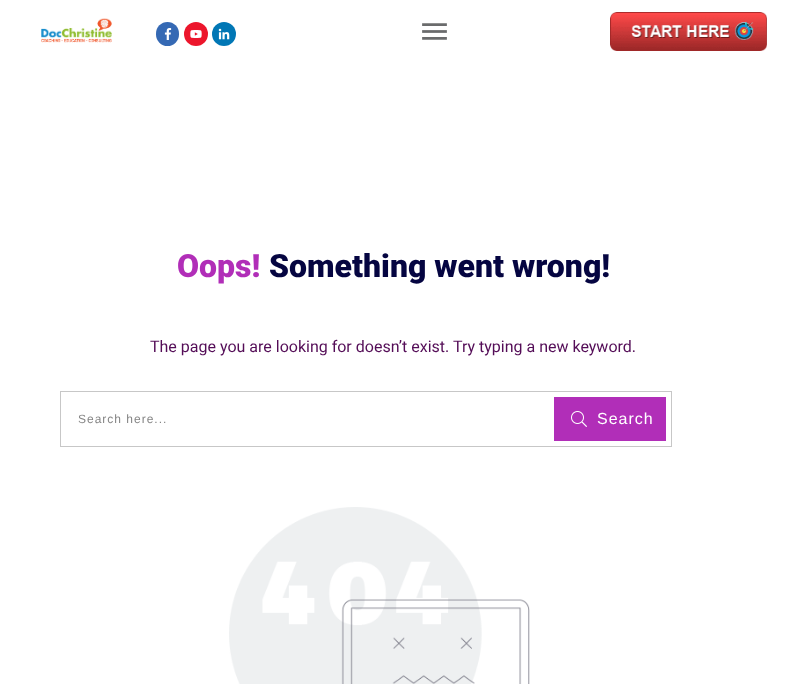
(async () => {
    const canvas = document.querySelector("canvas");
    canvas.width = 787;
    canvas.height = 684;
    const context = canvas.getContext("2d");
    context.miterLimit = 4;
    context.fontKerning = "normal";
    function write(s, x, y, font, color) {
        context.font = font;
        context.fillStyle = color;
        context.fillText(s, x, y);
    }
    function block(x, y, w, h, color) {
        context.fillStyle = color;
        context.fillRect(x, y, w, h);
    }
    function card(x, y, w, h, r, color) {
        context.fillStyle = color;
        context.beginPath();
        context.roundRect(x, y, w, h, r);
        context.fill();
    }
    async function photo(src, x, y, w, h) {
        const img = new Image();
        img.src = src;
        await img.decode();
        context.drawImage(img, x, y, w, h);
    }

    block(0, 0, 787, 684, "rgb(255, 255, 255)");
    await photo("media/1.png", 41, 18, 71, 25);
    card(156, 22, 23, 24, 11.5, "rgb(53, 105, 180)");
    await photo("media/2.png", 164, 28, 8, 12);
    context.fillStyle = "rgb(236, 22, 44)";
    context.beginPath();
    context.arc(196, 34, 12, 0, Math.PI * 2);
    context.fill();
    await photo("media/3.png", 190, 30, 12, 8);
    context.fillStyle = "rgb(1, 119, 181)";
    context.beginPath();
    context.arc(224, 34, 12, 0, Math.PI * 2);
    context.fill();
    await photo("media/4.png", 218, 28, 12, 12);
    await photo("media/5.png", 422, 23, 25, 17);
    await photo("media/6.png", 610, 12, 157, 39);
    write("Oops!", 177, 277, "900 32px Roboto", "rgb(177, 46, 184)");
    write("Something went wrong!", 269, 277, "900 32px Roboto", "rgb(5, 5, 65)");
    write("The page you are looking for doesn’t exist. Try typing a new keyword.", 150, 352, "16px Roboto", "rgb(84, 13, 87)");
    context.strokeStyle = "rgb(199, 199, 199)";
    context.strokeRect(60.5, 391.5, 611, 55);
    context.letterSpacing = "1px";
    write("Search here...", 78, 423, "12px Liberation Sans", "rgb(133, 133, 133)");
    block(554, 397, 112, 44, "rgb(177, 46, 184)");
    await photo("media/7.png", 571, 411, 16, 16);
    write("Search", 597, 424, "16px Liberation Sans", "rgb(255, 255, 255)");
    await photo("media/8.png", 229, 507, 301, 177);
})();
